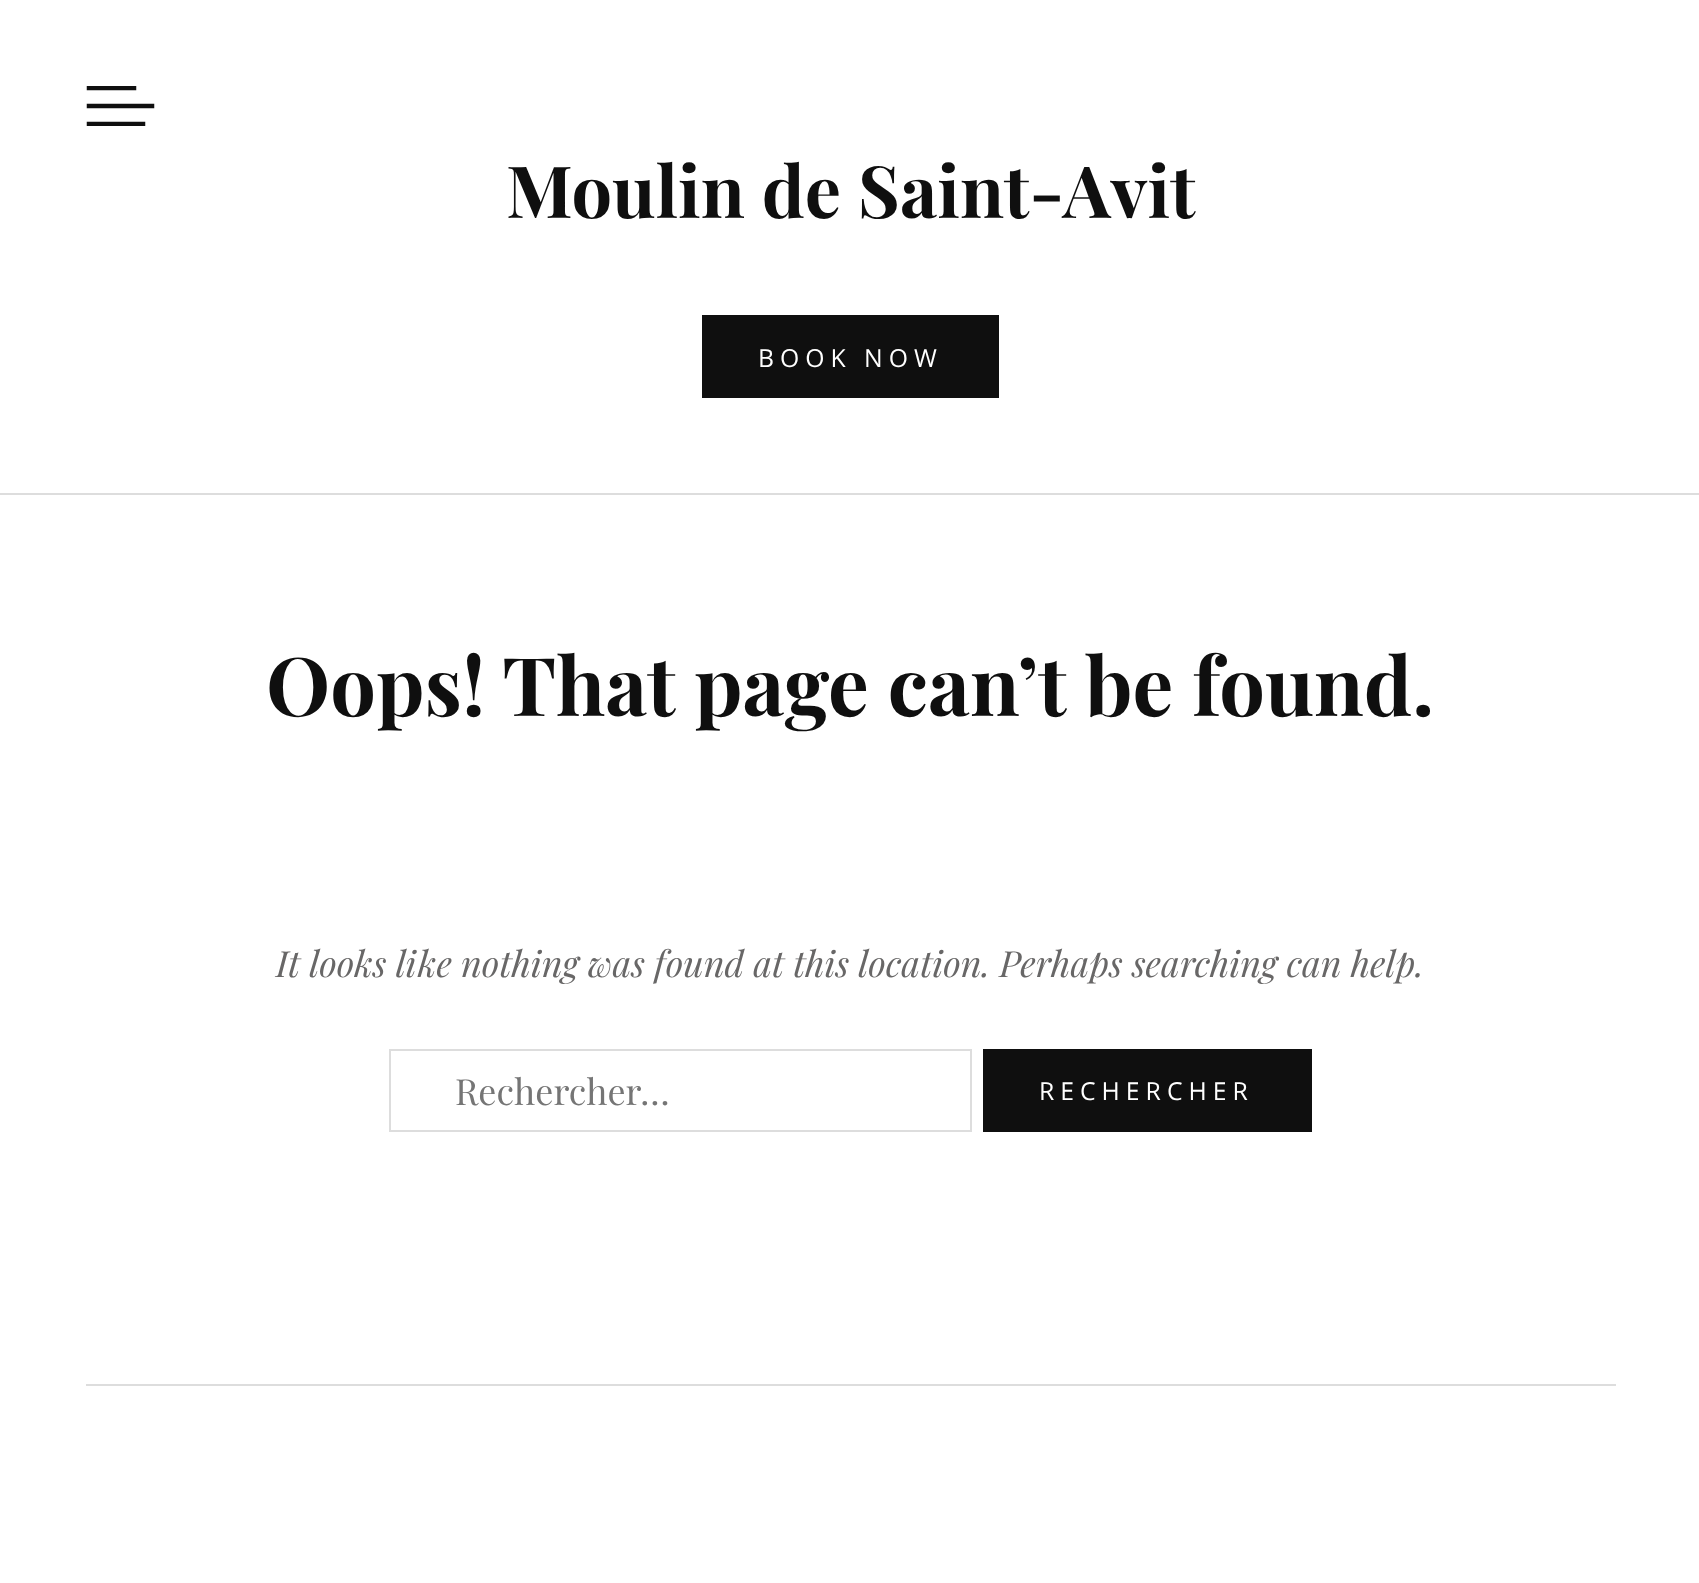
(async () => {
    const canvas = document.querySelector("canvas");
    canvas.width = 1699;
    canvas.height = 1583;
    const context = canvas.getContext("2d");
    context.miterLimit = 4;
    context.fontKerning = "normal";
    function write(s, x, y, font, color) {
        context.font = font;
        context.fillStyle = color;
        context.fillText(s, x, y);
    }
    function block(x, y, w, h, color) {
        context.fillStyle = color;
        context.fillRect(x, y, w, h);
    }

    block(0, 0, 1699, 1583, "rgb(255, 255, 255)");
    block(0, 493, 1699, 2, "rgb(221, 221, 221)");
    context.save();
    context.beginPath();
    context.rect(86, 86, 69, 40);
    context.clip();
    context.beginPath();
    context.moveTo(89, 106);
    context.lineTo(152, 106);
    context.moveTo(89, 124);
    context.lineTo(143, 124);
    context.moveTo(89, 88);
    context.lineTo(134, 88);
    context.strokeStyle = "rgb(15, 15, 15)";
    context.lineWidth = 4.5;
    context.lineCap = "square";
    context.stroke();
    context.restore();
    write("Moulin de Saint-Avit", 506, 218, "bold 72px Playfair Display", "rgb(15, 15, 15)");
    block(702, 315, 297, 83, "rgb(15, 15, 15)");
    context.letterSpacing = "6px";
    write("BOOK NOW", 758, 367, "24.75px Open Sans", "rgb(255, 255, 255)");
    context.letterSpacing = "0px";
    write("Oops! That page can’t be found.", 266, 716, "bold 81px Playfair Display", "rgb(15, 15, 15)");
    write("It looks like nothing was found at this location. Perhaps searching can help.", 276, 977, "italic 36px Playfair Display", "rgb(104, 103, 103)");
    context.strokeStyle = "rgb(221, 221, 221)";
    context.lineWidth = 2;
    context.strokeRect(390, 1050, 581, 81);
    write("Rechercher…", 455, 1105, "36px Playfair Display", "rgb(117, 117, 117)");
    block(983, 1049, 329, 83, "rgb(15, 15, 15)");
    context.letterSpacing = "6px";
    write("RECHERCHER", 1039, 1100, "24.75px Open Sans", "rgb(255, 255, 255)");
    block(86, 1384, 1530, 2, "rgb(221, 221, 221)");
})();
